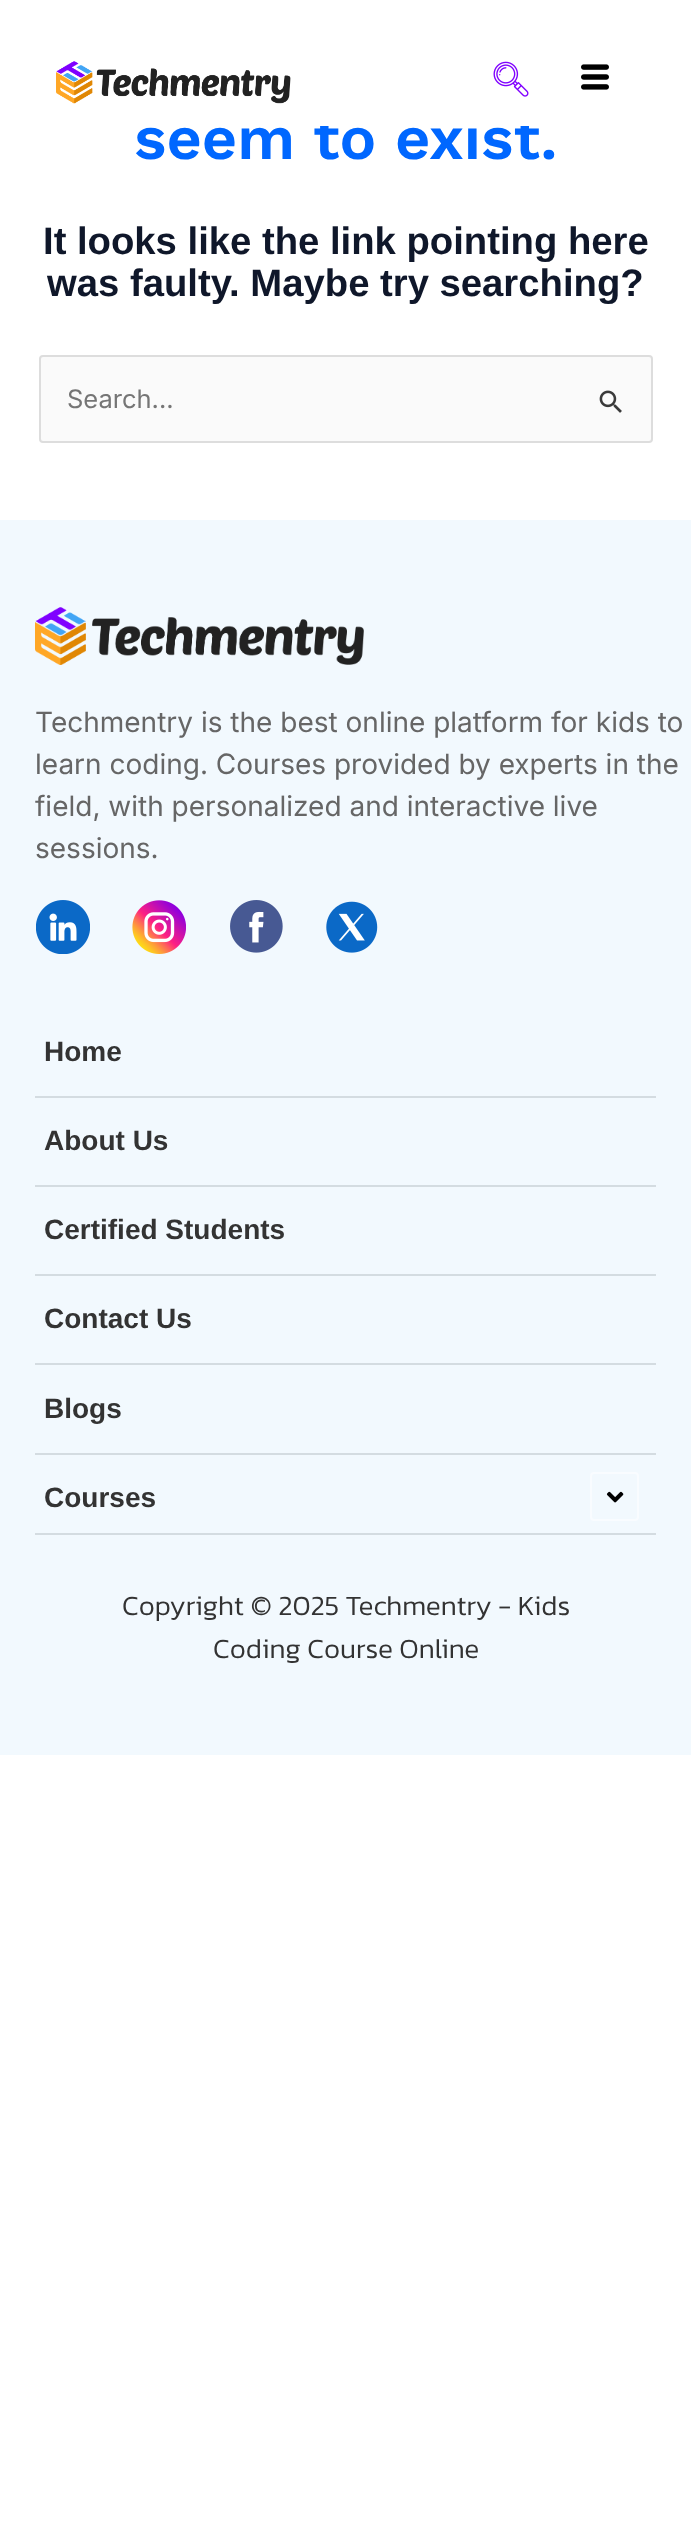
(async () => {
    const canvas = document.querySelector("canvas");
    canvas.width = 691;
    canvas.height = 2542;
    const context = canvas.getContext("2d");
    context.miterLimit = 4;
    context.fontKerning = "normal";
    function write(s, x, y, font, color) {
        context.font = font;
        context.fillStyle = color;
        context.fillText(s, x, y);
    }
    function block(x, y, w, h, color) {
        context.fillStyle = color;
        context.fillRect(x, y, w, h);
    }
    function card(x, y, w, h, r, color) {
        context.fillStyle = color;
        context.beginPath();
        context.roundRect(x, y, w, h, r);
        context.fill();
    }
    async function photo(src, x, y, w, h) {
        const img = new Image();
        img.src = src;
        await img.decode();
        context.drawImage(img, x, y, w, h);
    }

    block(0, 0, 691, 2542, "rgb(255, 255, 255)");
    write("seem to exist.", 134, 159, "600 61.25px Work Sans", "rgb(0, 103, 255)");
    card(35, 35, 621, 91, 28, "rgb(255, 255, 255)");
    await photo("media/1.png", 56, 61, 235, 43);
    await photo("media/2.png", 493, 61, 36, 36);
    await photo("media/3.png", 581, 64, 28, 26);
    write("It looks like the link pointing here", 43, 254, "bold 38.25px Liberation Sans", "rgb(15, 23, 42)");
    write("was faulty. Maybe try searching?", 47, 296, "bold 38.25px Liberation Sans", "rgb(15, 23, 42)");
    context.fillStyle = "rgb(250, 250, 250)";
    context.beginPath();
    context.roundRect(40, 356, 612, 86, 3);
    context.fill();
    context.strokeStyle = "rgb(221, 221, 221)";
    context.lineWidth = 2;
    context.stroke();
    write("Search...", 67, 408, "25.5px Inter", "rgb(117, 117, 117)");
    await photo("media/4.png", 599, 390, 23, 23);
    block(0, 520, 691, 1235, "rgb(242, 249, 254)");
    await photo("media/5.png", 35, 607, 329, 58);
    write("Techmentry is the best online platform for kids to", 35, 732, "28px Inter", "rgb(102, 102, 102)");
    write("learn coding. Courses provided by experts in the", 35, 774, "28px Inter", "rgb(102, 102, 102)");
    write("field, with personalized and interactive live", 35, 816, "28px Inter", "rgb(102, 102, 102)");
    write("sessions.", 35, 858, "28px Inter", "rgb(102, 102, 102)");
    await photo("media/6.png", 36, 900, 54, 54);
    await photo("media/7.png", 132, 900, 54, 54);
    await photo("media/8.png", 230, 900, 53, 53);
    await photo("media/9.png", 326, 901, 52, 52);
    block(35, 1533, 621, 2, "rgb(212, 220, 225)");
    block(35, 1096, 621, 2, "rgb(212, 220, 225)");
    write("Home", 44, 1061, "bold 28px Liberation Sans", "rgb(51, 51, 51)");
    block(35, 1185, 621, 2, "rgb(212, 220, 225)");
    write("About Us", 44, 1150, "bold 28px Liberation Sans", "rgb(51, 51, 51)");
    block(35, 1274, 621, 2, "rgb(212, 220, 225)");
    write("Certified Students", 44, 1239, "bold 28px Liberation Sans", "rgb(51, 51, 51)");
    block(35, 1363, 621, 2, "rgb(212, 220, 225)");
    write("Contact Us", 44, 1328, "bold 28px Liberation Sans", "rgb(51, 51, 51)");
    block(35, 1453, 621, 2, "rgb(212, 220, 225)");
    write("Blogs", 44, 1418, "bold 28px Liberation Sans", "rgb(51, 51, 51)");
    write("Courses", 44, 1507, "bold 28px Liberation Sans", "rgb(51, 51, 51)");
    context.beginPath();
    context.roundRect(591, 1473, 47, 47, 3);
    context.strokeStyle = "rgb(249, 252, 255)";
    context.stroke();
    await photo("media/10.png", 606, 1491, 18, 12);
    write("Copyright © 2025 Techmentry - Kids", 122, 1615, "300 28px Kanit", "rgb(51, 51, 51)");
    write("Coding Course Online", 213, 1658, "300 28px Kanit", "rgb(51, 51, 51)");
})();
